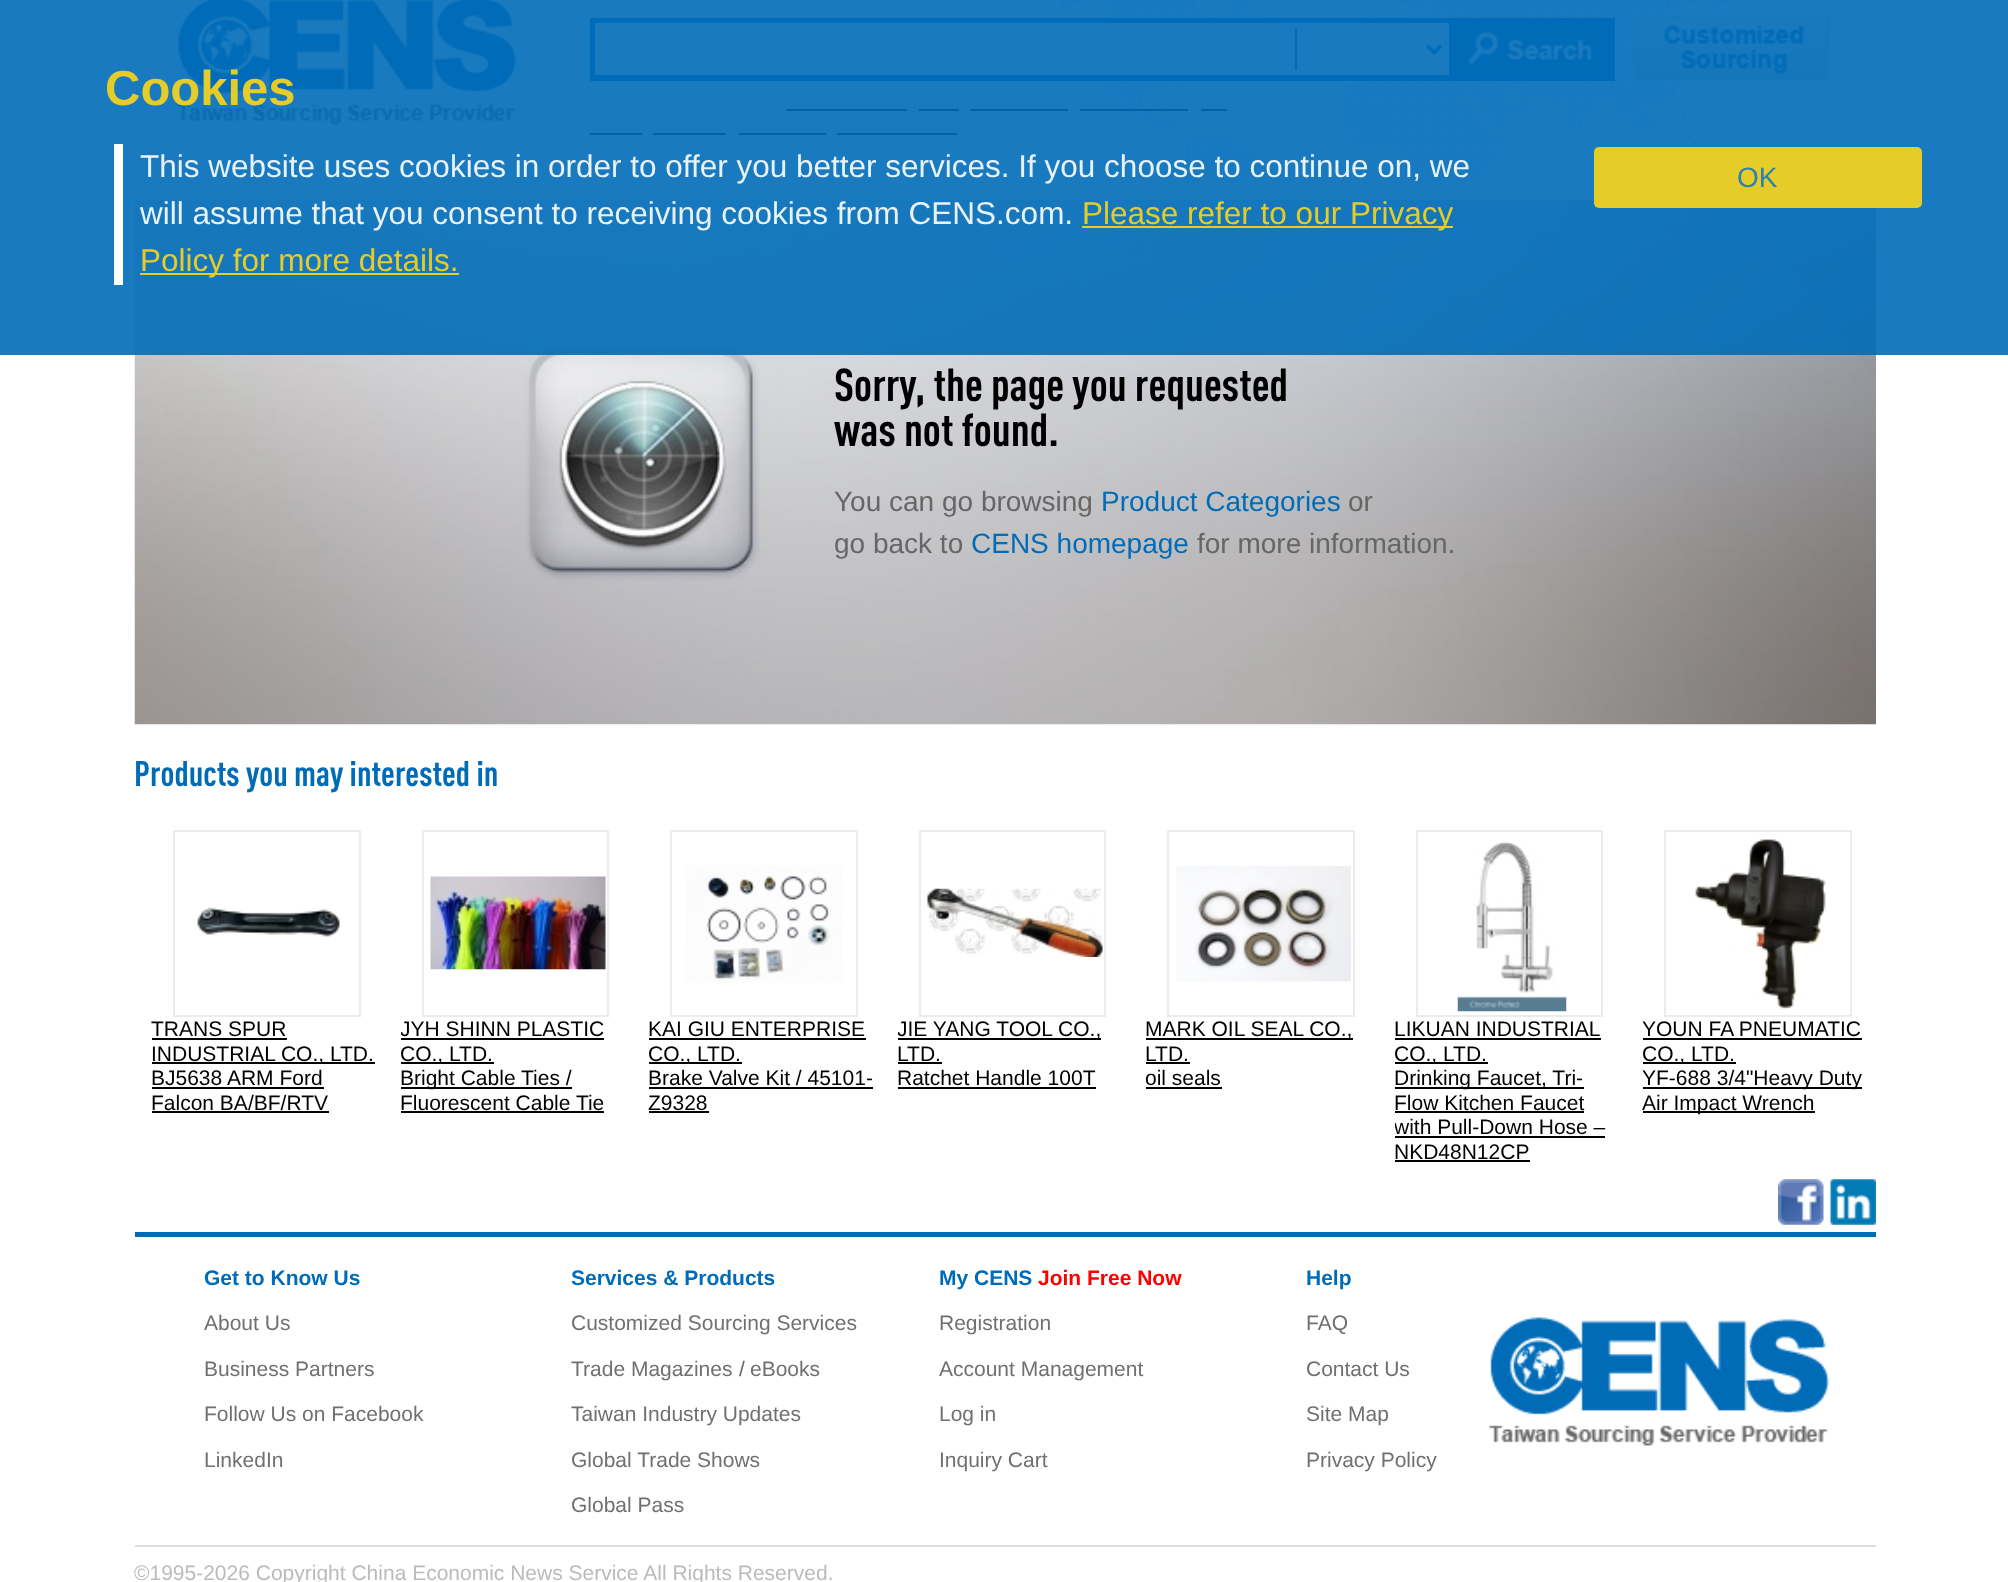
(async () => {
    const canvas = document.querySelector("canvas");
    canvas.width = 2008;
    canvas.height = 1582;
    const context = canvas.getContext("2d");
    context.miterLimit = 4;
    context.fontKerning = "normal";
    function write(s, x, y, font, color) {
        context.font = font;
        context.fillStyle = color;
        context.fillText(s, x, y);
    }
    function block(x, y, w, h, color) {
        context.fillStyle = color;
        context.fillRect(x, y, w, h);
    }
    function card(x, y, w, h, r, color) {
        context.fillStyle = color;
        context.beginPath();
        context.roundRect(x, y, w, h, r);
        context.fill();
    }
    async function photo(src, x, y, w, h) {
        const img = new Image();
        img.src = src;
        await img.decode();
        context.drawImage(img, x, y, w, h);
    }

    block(0, 0, 2008, 1582, "rgb(255, 255, 255)");
    await photo("media/1.png", 1060, 0, 713, 182);
    await photo("media/2.png", 176, 0, 341, 125);
    block(590, 18, 1025, 63, "rgb(0, 108, 184)");
    block(595, 23, 854, 52, "rgb(255, 255, 255)");
    await photo("media/3.png", 1454, 22, 154, 53);
    block(1295, 28, 2, 42, "rgb(0, 108, 184)");
    context.beginPath();
    context.moveTo(1427, 45.5);
    context.lineTo(1434, 52.5);
    context.lineTo(1441, 45.5);
    context.strokeStyle = "rgb(0, 108, 184)";
    context.lineWidth = 3.5;
    context.stroke();
    await photo("media/4.png", 1632, 17, 197, 64);
    block(786, 109, 121, 2, "rgb(0, 0, 0)");
    block(919, 109, 40, 2, "rgb(0, 0, 0)");
    block(970, 109, 98, 2, "rgb(0, 0, 0)");
    block(1080, 109, 108, 2, "rgb(0, 0, 0)");
    block(1201, 109, 26, 2, "rgb(0, 0, 0)");
    block(590, 133, 52, 2, "rgb(0, 0, 0)");
    block(653, 133, 73, 2, "rgb(0, 0, 0)");
    block(739, 133, 87, 2, "rgb(0, 0, 0)");
    block(837, 133, 120, 2, "rgb(0, 0, 0)");
    await photo("media/5.png", 134, 199, 1742, 526);
    block(0, 0, 2008, 355, "rgba(0, 108, 184, 0.9)");
    write("Cookies", 105, 105, "bold 49px Liberation Sans", "rgb(230, 204, 41)");
    block(114, 144, 9, 141, "rgb(255, 255, 255)");
    write("This website uses cookies in order to offer you better services. If you choose to continue on, we", 140, 177, "31.5px Liberation Sans", "rgb(232, 242, 249)");
    write("will assume that you consent to receiving cookies from CENS.com.", 140, 224, "31.5px Liberation Sans", "rgb(232, 242, 249)");
    block(1082, 226, 371, 2, "rgb(230, 204, 40)");
    write("Please refer to our Privacy", 1082, 224, "31.5px Liberation Sans", "rgb(230, 204, 41)");
    block(140, 273, 319, 2, "rgb(230, 204, 40)");
    write("Policy for more details.", 140, 271, "31.5px Liberation Sans", "rgb(230, 204, 41)");
    card(1594, 147, 328, 61, 5, "rgba(253, 213, 24, 0.9)");
    write("OK", 1737, 187, "28px Liberation Sans", "rgb(44, 129, 175)");
    write("Sorry, the page you requested", 834, 401, "bold 45.5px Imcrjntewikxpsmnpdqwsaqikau", "rgb(0, 0, 0)");
    write("was not found.", 834, 446, "bold 45.5px Imcrjntewikxpsmnpdqwsaqikau", "rgb(0, 0, 0)");
    write("You can go browsing", 834, 511, "28px Liberation Sans", "rgb(102, 102, 102)");
    write("Product Categories", 1101, 511, "28px Liberation Sans", "rgb(0, 108, 184)");
    write("or", 1348, 511, "28px Liberation Sans", "rgb(102, 102, 102)");
    write("go back to", 834, 553, "28px Liberation Sans", "rgb(102, 102, 102)");
    write("CENS homepage", 971, 553, "28px Liberation Sans", "rgb(0, 108, 184)");
    write("for more information.", 1197, 553, "28px Liberation Sans", "rgb(102, 102, 102)");
    write("Products you may interested in", 134, 786, "bold 35px Imcrjntewikxpsmnpdqwsaqikau", "rgb(0, 108, 184)");
    context.strokeStyle = "rgb(236, 236, 236)";
    context.lineWidth = 2;
    context.strokeRect(174, 831, 186, 185);
    await photo("media/6.png", 197, 907, 143, 30);
    write("TRANS SPUR", 151, 1036, "21px Liberation Sans", "rgb(0, 0, 0)");
    block(152, 1038, 135, 2, "rgb(0, 0, 0)");
    block(152, 1062, 223, 2, "rgb(0, 0, 0)");
    write("INDUSTRIAL CO., LTD.", 151, 1061, "21px Liberation Sans", "rgb(0, 0, 0)");
    write("BJ5638 ARM Ford", 151, 1085, "21px Liberation Sans", "rgb(0, 0, 0)");
    block(152, 1087, 172, 2, "rgb(0, 0, 0)");
    write("Falcon BA/BF/RTV", 151, 1110, "21px Liberation Sans", "rgb(0, 0, 0)");
    block(152, 1111, 177, 2, "rgb(0, 0, 0)");
    context.strokeRect(423, 831, 185, 185);
    await photo("media/7.png", 430, 876, 176, 94);
    context.save();
    context.beginPath();
    context.rect(401, 830, 231, 350);
    context.clip();
    write("JYH SHINN PLASTIC", 400, 1036, "21px Liberation Sans", "rgb(0, 0, 0)");
    context.restore();
    block(401, 1038, 203, 2, "rgb(0, 0, 0)");
    block(401, 1062, 93, 2, "rgb(0, 0, 0)");
    write("CO., LTD.", 400, 1061, "21px Liberation Sans", "rgb(0, 0, 0)");
    block(401, 1087, 171, 2, "rgb(0, 0, 0)");
    write("Bright Cable Ties /", 400, 1085, "21px Liberation Sans", "rgb(0, 0, 0)");
    write("Fluorescent Cable Tie", 400, 1110, "21px Liberation Sans", "rgb(0, 0, 0)");
    block(401, 1111, 203, 2, "rgb(0, 0, 0)");
    context.strokeRect(671, 831, 186, 185);
    await photo("media/8.png", 685, 865, 158, 118);
    write("KAI GIU ENTERPRISE", 648, 1036, "21px Liberation Sans", "rgb(0, 0, 0)");
    block(649, 1038, 217, 2, "rgb(0, 0, 0)");
    block(649, 1062, 93, 2, "rgb(0, 0, 0)");
    write("CO., LTD.", 648, 1061, "21px Liberation Sans", "rgb(0, 0, 0)");
    write("Brake Valve Kit / 45101-", 648, 1085, "21px Liberation Sans", "rgb(0, 0, 0)");
    block(649, 1087, 224, 2, "rgb(0, 0, 0)");
    write("Z9328", 648, 1110, "21px Liberation Sans", "rgb(0, 0, 0)");
    block(649, 1111, 60, 2, "rgb(0, 0, 0)");
    context.strokeRect(920, 831, 185, 185);
    await photo("media/9.png", 927, 888, 176, 69);
    block(898, 1038, 203, 2, "rgb(0, 0, 0)");
    context.save();
    context.beginPath();
    context.rect(898, 830, 231, 350);
    context.clip();
    write("JIE YANG TOOL CO.,", 897, 1036, "21px Liberation Sans", "rgb(0, 0, 0)");
    context.restore();
    write("LTD.", 897, 1061, "21px Liberation Sans", "rgb(0, 0, 0)");
    block(898, 1062, 44, 2, "rgb(0, 0, 0)");
    write("Ratchet Handle 100T", 897, 1085, "21px Liberation Sans", "rgb(0, 0, 0)");
    block(898, 1087, 198, 2, "rgb(0, 0, 0)");
    context.strokeRect(1168, 831, 186, 185);
    await photo("media/10.png", 1176, 866, 175, 116);
    block(1146, 1038, 207, 2, "rgb(0, 0, 0)");
    write("MARK OIL SEAL CO.,", 1145, 1036, "21px Liberation Sans", "rgb(0, 0, 0)");
    write("LTD.", 1145, 1061, "21px Liberation Sans", "rgb(0, 0, 0)");
    block(1146, 1062, 44, 2, "rgb(0, 0, 0)");
    write("oil seals", 1145, 1085, "21px Liberation Sans", "rgb(0, 0, 0)");
    block(1146, 1087, 76, 2, "rgb(0, 0, 0)");
    context.strokeRect(1417, 831, 185, 185);
    await photo("media/11.png", 1457, 841, 110, 171);
    write("LIKUAN INDUSTRIAL", 1394, 1036, "21px Liberation Sans", "rgb(0, 0, 0)");
    block(1395, 1038, 206, 2, "rgb(0, 0, 0)");
    block(1395, 1062, 93, 2, "rgb(0, 0, 0)");
    write("CO., LTD.", 1394, 1061, "21px Liberation Sans", "rgb(0, 0, 0)");
    block(1395, 1087, 189, 2, "rgb(0, 0, 0)");
    write("Drinking Faucet, Tri-", 1394, 1085, "21px Liberation Sans", "rgb(0, 0, 0)");
    write("Flow Kitchen Faucet", 1394, 1110, "21px Liberation Sans", "rgb(0, 0, 0)");
    block(1395, 1111, 189, 2, "rgb(0, 0, 0)");
    context.save();
    context.beginPath();
    context.rect(1395, 830, 231, 350);
    context.clip();
    write("with Pull-Down Hose –", 1394, 1134, "21px Liberation Sans", "rgb(0, 0, 0)");
    context.restore();
    block(1395, 1136, 210, 2, "rgb(0, 0, 0)");
    write("NKD48N12CP", 1394, 1159, "21px Liberation Sans", "rgb(0, 0, 0)");
    block(1395, 1160, 135, 2, "rgb(0, 0, 0)");
    context.strokeRect(1665, 831, 186, 185);
    await photo("media/12.png", 1695, 839, 131, 170);
    write("YOUN FA PNEUMATIC", 1642, 1036, "21px Liberation Sans", "rgb(0, 0, 0)");
    block(1643, 1038, 219, 2, "rgb(0, 0, 0)");
    block(1643, 1062, 93, 2, "rgb(0, 0, 0)");
    write("CO., LTD.", 1642, 1061, "21px Liberation Sans", "rgb(0, 0, 0)");
    block(1643, 1087, 219, 2, "rgb(0, 0, 0)");
    write("YF-688 3/4\"Heavy Duty", 1642, 1085, "21px Liberation Sans", "rgb(0, 0, 0)");
    block(1643, 1111, 172, 2, "rgb(0, 0, 0)");
    write("Air Impact Wrench", 1642, 1110, "21px Liberation Sans", "rgb(0, 0, 0)");
    block(135, 1232, 1741, 5, "rgb(0, 108, 184)");
    await photo("media/13.png", 1778, 1179, 46, 46);
    await photo("media/14.png", 1830, 1179, 46, 46);
    write("Get to Know Us", 204, 1285, "bold 21px Liberation Sans", "rgb(0, 108, 184)");
    write("About Us", 204, 1330, "21px Liberation Sans", "rgb(112, 112, 112)");
    write("Business Partners", 204, 1376, "21px Liberation Sans", "rgb(112, 112, 112)");
    write("Follow Us on Facebook", 204, 1421, "21px Liberation Sans", "rgb(112, 112, 112)");
    write("LinkedIn", 204, 1467, "21px Liberation Sans", "rgb(112, 112, 112)");
    write("Services & Products", 571, 1285, "bold 21px Liberation Sans", "rgb(0, 108, 184)");
    write("Customized Sourcing Services", 571, 1330, "21px Liberation Sans", "rgb(112, 112, 112)");
    write("Trade Magazines", 571, 1376, "21px Liberation Sans", "rgb(112, 112, 112)");
    write("/", 739, 1376, "21px Liberation Sans", "rgb(102, 102, 102)");
    write("eBooks", 750, 1376, "21px Liberation Sans", "rgb(112, 112, 112)");
    write("Taiwan Industry Updates", 571, 1421, "21px Liberation Sans", "rgb(112, 112, 112)");
    write("Global Trade Shows", 571, 1467, "21px Liberation Sans", "rgb(112, 112, 112)");
    write("Global Pass", 571, 1512, "21px Liberation Sans", "rgb(112, 112, 112)");
    write("My CENS", 939, 1285, "bold 21px Liberation Sans", "rgb(0, 108, 184)");
    write("Join Free Now", 1038, 1285, "bold 21px Liberation Sans", "rgb(255, 0, 0)");
    write("Registration", 939, 1330, "21px Liberation Sans", "rgb(112, 112, 112)");
    write("Account Management", 939, 1376, "21px Liberation Sans", "rgb(112, 112, 112)");
    write("Log in", 939, 1421, "21px Liberation Sans", "rgb(112, 112, 112)");
    write("Inquiry Cart", 939, 1467, "21px Liberation Sans", "rgb(112, 112, 112)");
    write("Help", 1306, 1285, "bold 21px Liberation Sans", "rgb(0, 108, 184)");
    write("FAQ", 1306, 1330, "21px Liberation Sans", "rgb(112, 112, 112)");
    write("Contact Us", 1306, 1376, "21px Liberation Sans", "rgb(112, 112, 112)");
    write("Site Map", 1306, 1421, "21px Liberation Sans", "rgb(112, 112, 112)");
    write("Privacy Policy", 1306, 1467, "21px Liberation Sans", "rgb(112, 112, 112)");
    await photo("media/15.png", 1488, 1317, 342, 129);
    block(135, 1545, 1741, 2, "rgb(221, 221, 221)");
    write("©1995-2026 Copyright China Economic News Service All Rights Reserved.", 134, 1580, "21px Liberation Sans", "rgb(187, 187, 187)");
})();
